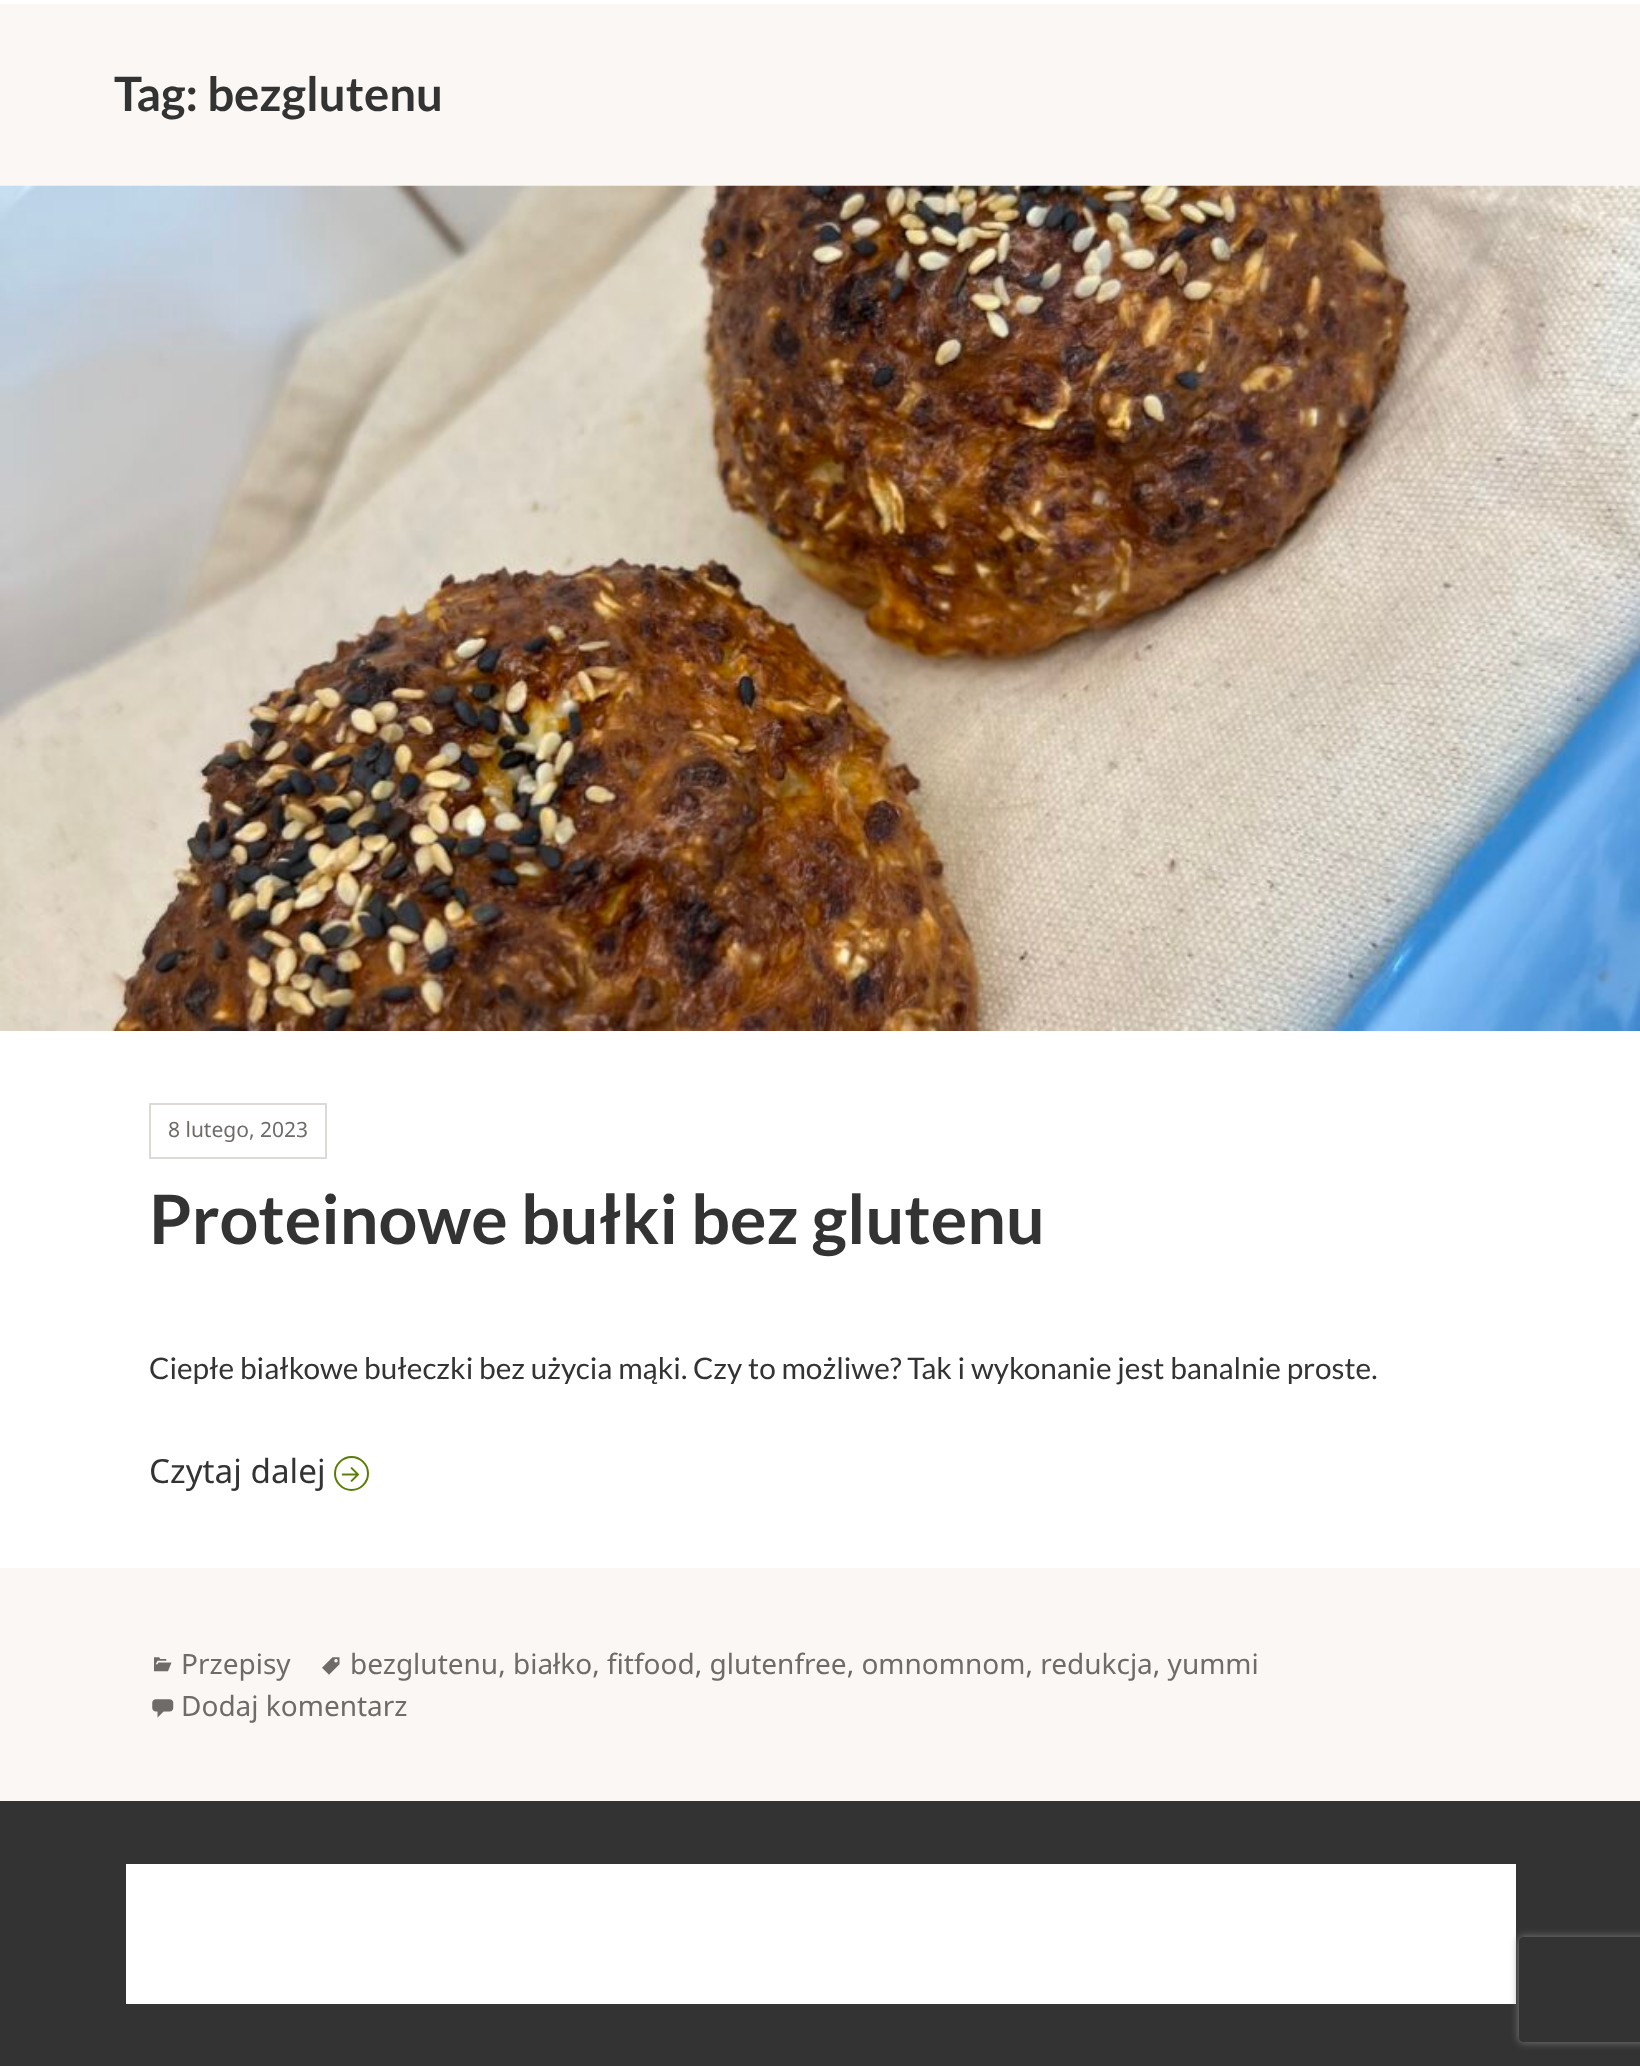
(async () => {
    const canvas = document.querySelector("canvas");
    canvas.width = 1640;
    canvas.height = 2066;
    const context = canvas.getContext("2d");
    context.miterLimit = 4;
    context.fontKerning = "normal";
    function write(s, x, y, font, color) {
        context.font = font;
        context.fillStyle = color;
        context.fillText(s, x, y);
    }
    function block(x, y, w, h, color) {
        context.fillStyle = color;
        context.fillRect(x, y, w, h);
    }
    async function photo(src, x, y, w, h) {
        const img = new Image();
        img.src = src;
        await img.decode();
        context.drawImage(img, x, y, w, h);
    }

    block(0, 0, 1640, 2066, "rgb(255, 255, 255)");
    block(0, 4, 1640, 182, "rgb(251, 247, 244)");
    write("Tag: bezglutenu", 114, 111, "bold 47.25px Lato", "rgb(51, 51, 51)");
    await photo("media/1.png", 0, 185, 1640, 846);
    context.strokeStyle = "rgb(221, 217, 214)";
    context.lineWidth = 2;
    context.strokeRect(150, 1104, 176, 54);
    write("8 lutego, 2023", 168, 1137, "21px Noto Sans", "rgb(111, 107, 104)");
    write("Proteinowe bułki bez glutenu", 149, 1244, "bold 68.25px Lato", "rgb(51, 51, 51)");
    write("Ciepłe białkowe bułeczki bez użycia mąki. Czy to możliwe? Tak i wykonanie jest banalnie proste.", 149, 1379, "29.75px Lato", "rgb(51, 51, 51)");
    write("Czytaj dalej", 149, 1483, "33.25px Noto Sans", "rgb(51, 51, 51)");
    context.beginPath();
    context.arc(351.5, 1473.5, 16.5, 0, Math.PI * 2);
    context.strokeStyle = "rgb(89, 125, 4)";
    context.stroke();
    await photo("media/2.png", 341, 1467, 19, 15);
    block(0, 1568, 1640, 233, "rgb(251, 247, 244)");
    await photo("media/3.png", 154, 1657, 18, 15);
    write("Przepisy", 181, 1674, "28px Noto Sans", "rgb(111, 107, 104)");
    await photo("media/4.png", 322, 1657, 18, 18);
    write("bezglutenu, białko, fitfood, glutenfree, omnomnom, redukcja, yummi", 350, 1674, "28px Noto Sans", "rgb(111, 107, 104)");
    await photo("media/5.png", 152, 1699, 22, 19);
    write("Dodaj komentarz", 181, 1716, "28px Noto Sans", "rgb(111, 107, 104)");
    block(0, 1801, 1640, 265, "rgb(51, 51, 51)");
    block(126, 1864, 1390, 140, "rgb(255, 255, 255)");
    context.save();
    context.beginPath();
    context.moveTo(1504, 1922);
    context.lineTo(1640, 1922);
    context.lineTo(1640, 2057);
    context.lineTo(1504, 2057);
    context.closePath();
    context.moveTo(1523, 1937);
    context.lineTo(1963, 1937);
    context.bezierCurveTo(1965, 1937, 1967, 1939, 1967, 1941);
    context.lineTo(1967, 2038);
    context.bezierCurveTo(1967, 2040, 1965, 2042, 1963, 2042);
    context.lineTo(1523, 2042);
    context.bezierCurveTo(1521, 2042, 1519, 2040, 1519, 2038);
    context.lineTo(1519, 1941);
    context.bezierCurveTo(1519, 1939, 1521, 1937, 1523, 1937);
    context.closePath();
    context.clip("evenodd");
    context.fillStyle = "rgb(128, 128, 128)";
    context.filter = "blur(4.5px)";
    context.beginPath();
    context.roundRect(1519, 1937, 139, 105, 4);
    context.fill();
    context.filter = "none";
    context.restore();
})();
